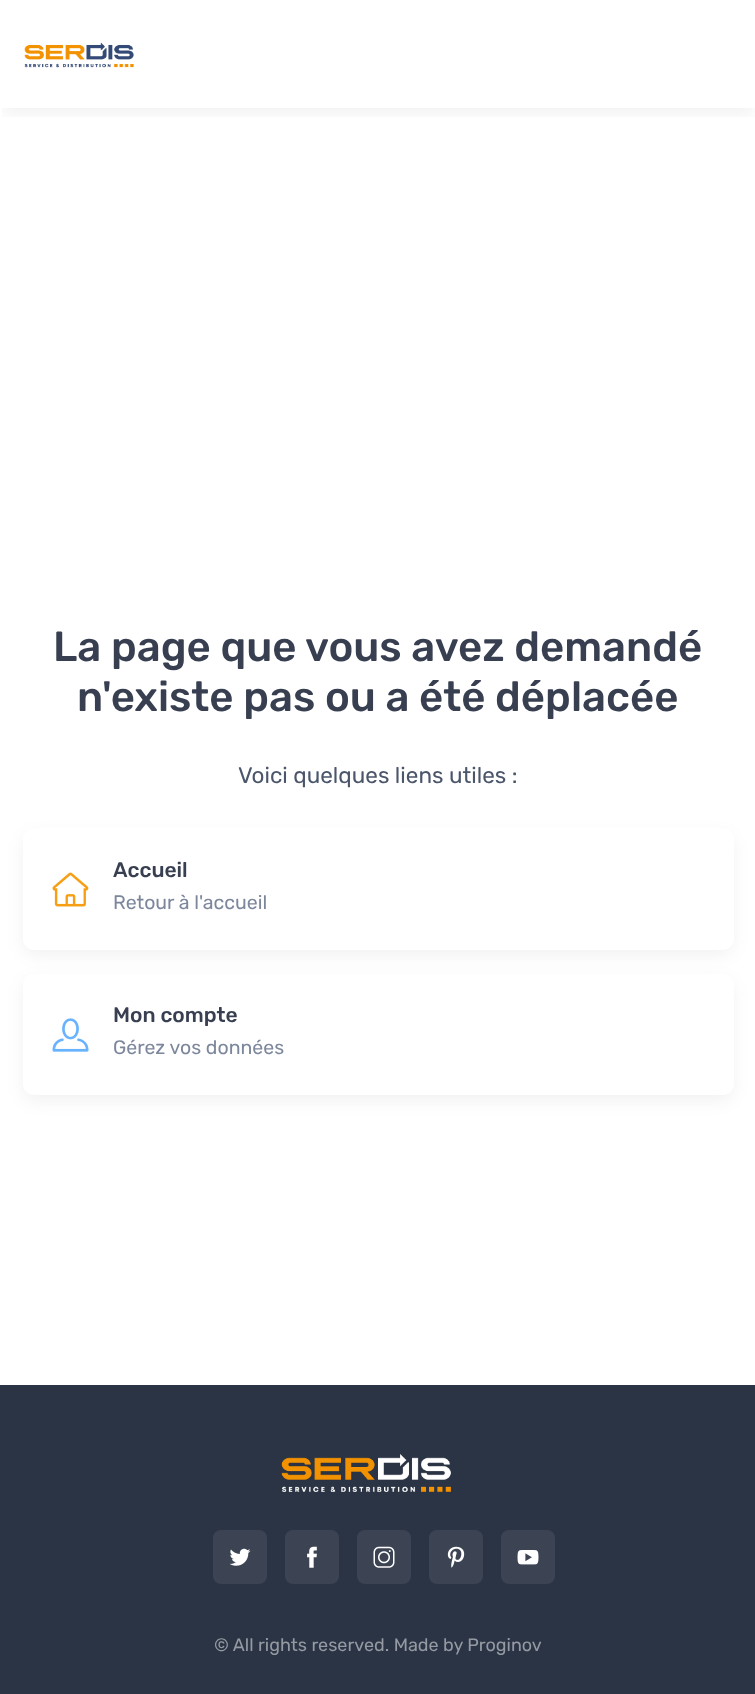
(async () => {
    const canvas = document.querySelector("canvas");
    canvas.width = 755;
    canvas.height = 1694;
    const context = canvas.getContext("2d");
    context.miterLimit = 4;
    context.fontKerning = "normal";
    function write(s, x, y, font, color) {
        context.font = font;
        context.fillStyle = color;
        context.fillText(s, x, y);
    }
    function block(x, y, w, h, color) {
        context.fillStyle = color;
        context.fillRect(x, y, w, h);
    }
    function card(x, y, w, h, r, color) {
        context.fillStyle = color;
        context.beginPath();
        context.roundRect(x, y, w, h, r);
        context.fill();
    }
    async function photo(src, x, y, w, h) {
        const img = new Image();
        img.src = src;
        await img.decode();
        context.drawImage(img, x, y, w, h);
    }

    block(0, 0, 755, 1694, "rgb(255, 255, 255)");
    context.save();
    context.beginPath();
    context.rect(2, 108, 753, 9);
    context.clip();
    context.fillStyle = "rgba(0, 0, 0, 0.06)";
    context.filter = "blur(9px)";
    context.beginPath();
    context.rect(2, 8, 753, 105);
    context.fill();
    context.filter = "none";
    context.restore();
    await photo("media/1.png", 24, 42, 110, 26);
    write("La page que vous avez demandé", 53, 661, "500 42px Rubik", "rgb(55, 63, 80)");
    write("n'existe pas ou a été déplacée", 77, 711, "500 42px Rubik", "rgb(55, 63, 80)");
    write("Voici quelques liens utiles :", 238, 783, "22.5px Rubik", "rgb(75, 86, 107)");
    context.fillStyle = "rgba(0, 0, 0, 0.06)";
    context.filter = "blur(9px)";
    context.beginPath();
    context.roundRect(24, 836, 708, 118, 9);
    context.fill();
    context.filter = "none";
    card(23, 828, 711, 122, 11, "rgb(255, 255, 255)");
    await photo("media/2.png", 52, 872, 37, 35);
    write("Accueil", 113, 877, "500 21px Rubik", "rgb(55, 63, 80)");
    write("Retour à l'accueil", 113, 909, "19.5px Rubik", "rgb(125, 135, 156)");
    context.fillStyle = "rgba(0, 0, 0, 0.06)";
    context.filter = "blur(9px)";
    context.beginPath();
    context.roundRect(24, 981, 708, 119, 9);
    context.fill();
    context.filter = "none";
    card(23, 974, 711, 121, 11, "rgb(255, 255, 255)");
    await photo("media/3.png", 52, 1018, 37, 34);
    write("Mon compte", 113, 1022, "500 21px Rubik", "rgb(55, 63, 80)");
    write("Gérez vos données", 113, 1054, "19.5px Rubik", "rgb(125, 135, 156)");
    block(0, 1385, 755, 309, "rgb(43, 52, 69)");
    await photo("media/4.png", 281, 1454, 170, 38);
    card(213, 1530, 54, 54, 8, "rgb(60, 68, 84)");
    await photo("media/5.png", 229, 1548, 22, 18);
    card(285, 1530, 54, 54, 8, "rgb(60, 68, 84)");
    await photo("media/6.png", 307, 1546, 10, 22);
    card(357, 1530, 54, 54, 8, "rgb(60, 68, 84)");
    await photo("media/7.png", 373, 1546, 22, 22);
    card(429, 1530, 54, 54, 8, "rgb(60, 68, 84)");
    await photo("media/8.png", 447, 1546, 18, 22);
    card(501, 1530, 54, 54, 8, "rgb(60, 68, 84)");
    await photo("media/9.png", 517, 1550, 22, 15);
    write("© All rights reserved. Made by Proginov", 214, 1651, "18px Rubik", "rgb(149, 154, 162)");
})();
